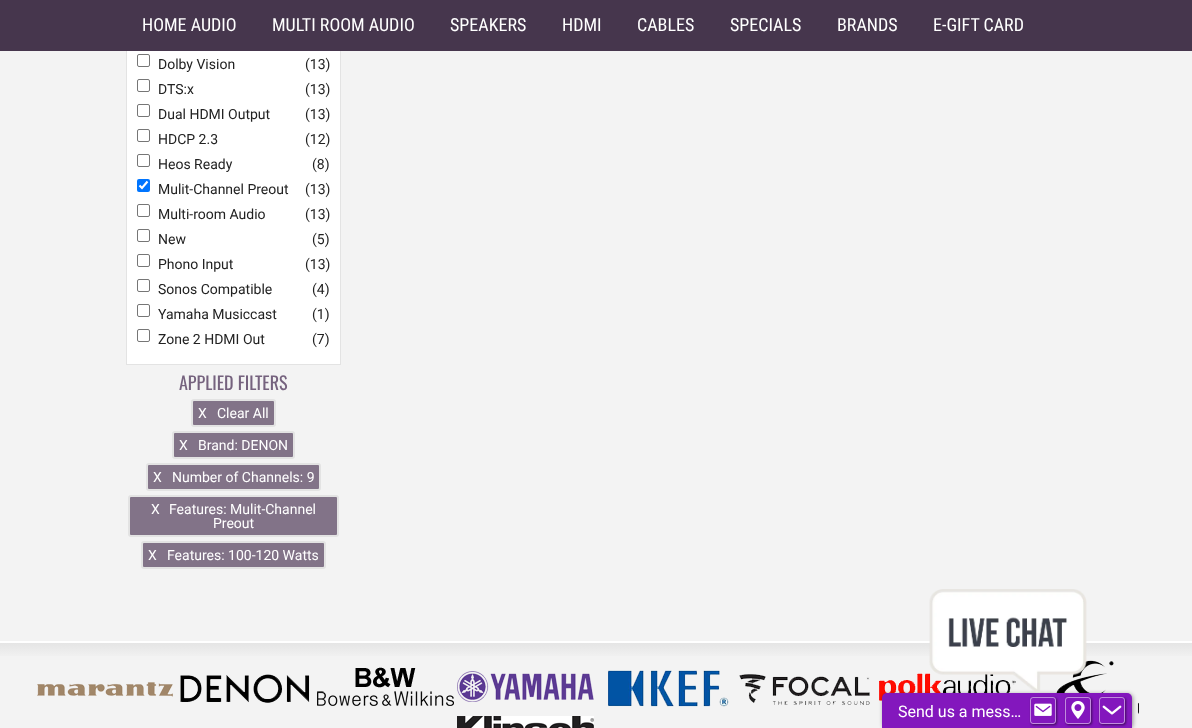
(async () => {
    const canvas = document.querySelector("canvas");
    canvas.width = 1192;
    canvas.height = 728;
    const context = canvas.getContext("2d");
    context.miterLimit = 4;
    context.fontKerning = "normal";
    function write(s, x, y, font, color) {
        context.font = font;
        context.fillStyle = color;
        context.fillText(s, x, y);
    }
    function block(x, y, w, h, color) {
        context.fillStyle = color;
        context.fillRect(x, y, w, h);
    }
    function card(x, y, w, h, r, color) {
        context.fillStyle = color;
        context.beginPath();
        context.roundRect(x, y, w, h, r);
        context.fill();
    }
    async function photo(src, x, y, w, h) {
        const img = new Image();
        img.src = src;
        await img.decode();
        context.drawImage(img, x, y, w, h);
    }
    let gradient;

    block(0, 0, 1192, 728, "rgb(243, 243, 243)");
    block(0, 0, 1192, 51, "rgb(70, 54, 77)");
    write("HOME AUDIO", 142, 31, "18px Roboto Condensed", "rgb(255, 255, 255)");
    write("MULTI ROOM AUDIO", 272, 31, "18px Roboto Condensed", "rgb(255, 255, 255)");
    write("SPEAKERS", 450, 31, "18px Roboto Condensed", "rgb(255, 255, 255)");
    write("HDMI", 562, 31, "18px Roboto Condensed", "rgb(255, 255, 255)");
    write("CABLES", 637, 31, "18px Roboto Condensed", "rgb(255, 255, 255)");
    write("SPECIALS", 730, 31, "18px Roboto Condensed", "rgb(255, 255, 255)");
    write("BRANDS", 837, 31, "18px Roboto Condensed", "rgb(255, 255, 255)");
    write("E-GIFT CARD", 933, 31, "18px Roboto Condensed", "rgb(255, 255, 255)");
    block(127, 51, 213, 313, "rgb(255, 255, 255)");
    block(340, 51, 1, 314, "rgb(227, 227, 227)");
    block(126, 364, 215, 1, "rgb(227, 227, 227)");
    block(126, 51, 1, 314, "rgb(227, 227, 227)");
    context.beginPath();
    context.roundRect(137.5, 54.5, 12, 12, 1.5);
    context.strokeStyle = "rgb(118, 118, 118)";
    context.stroke();
    write("Dolby Vision", 158, 69, "14px Roboto", "rgb(34, 34, 34)");
    write("(13)", 305, 69, "14px Roboto", "rgb(34, 34, 34)");
    context.beginPath();
    context.roundRect(137.5, 79.5, 12, 12, 1.5);
    context.stroke();
    write("DTS:x", 158, 94, "14px Roboto", "rgb(34, 34, 34)");
    write("(13)", 305, 94, "14px Roboto", "rgb(34, 34, 34)");
    context.beginPath();
    context.roundRect(137.5, 104.5, 12, 12, 1.5);
    context.stroke();
    write("Dual HDMI Output", 158, 119, "14px Roboto", "rgb(34, 34, 34)");
    write("(13)", 305, 119, "14px Roboto", "rgb(34, 34, 34)");
    context.beginPath();
    context.roundRect(137.5, 129.5, 12, 12, 1.5);
    context.stroke();
    write("HDCP 2.3", 158, 144, "14px Roboto", "rgb(34, 34, 34)");
    write("(12)", 305, 144, "14px Roboto", "rgb(34, 34, 34)");
    context.beginPath();
    context.roundRect(137.5, 154.5, 12, 12, 1.5);
    context.stroke();
    write("Heos Ready", 158, 169, "14px Roboto", "rgb(34, 34, 34)");
    write("(8)", 312, 169, "14px Roboto", "rgb(34, 34, 34)");
    card(137, 179, 13, 13, 2, "rgb(0, 117, 255)");
    context.beginPath();
    context.moveTo(139.5, 185.5);
    context.lineTo(142, 188);
    context.lineTo(147.5, 181.5);
    context.strokeStyle = "rgb(255, 255, 255)";
    context.lineWidth = 2.1;
    context.stroke();
    write("Mulit-Channel Preout", 158, 194, "14px Roboto", "rgb(34, 34, 34)");
    write("(13)", 305, 194, "14px Roboto", "rgb(34, 34, 34)");
    context.beginPath();
    context.roundRect(137.5, 204.5, 12, 12, 1.5);
    context.strokeStyle = "rgb(118, 118, 118)";
    context.lineWidth = 1;
    context.stroke();
    write("Multi-room Audio", 158, 219, "14px Roboto", "rgb(34, 34, 34)");
    write("(13)", 305, 219, "14px Roboto", "rgb(34, 34, 34)");
    context.beginPath();
    context.roundRect(137.5, 229.5, 12, 12, 1.5);
    context.stroke();
    write("New", 158, 244, "14px Roboto", "rgb(34, 34, 34)");
    write("(5)", 312, 244, "14px Roboto", "rgb(34, 34, 34)");
    context.beginPath();
    context.roundRect(137.5, 254.5, 12, 12, 1.5);
    context.stroke();
    write("Phono Input", 158, 269, "14px Roboto", "rgb(34, 34, 34)");
    write("(13)", 305, 269, "14px Roboto", "rgb(34, 34, 34)");
    context.beginPath();
    context.roundRect(137.5, 279.5, 12, 12, 1.5);
    context.stroke();
    write("Sonos Compatible", 158, 294, "14px Roboto", "rgb(34, 34, 34)");
    write("(4)", 312, 294, "14px Roboto", "rgb(34, 34, 34)");
    context.beginPath();
    context.roundRect(137.5, 304.5, 12, 12, 1.5);
    context.stroke();
    write("Yamaha Musiccast", 158, 319, "14px Roboto", "rgb(34, 34, 34)");
    write("(1)", 312, 319, "14px Roboto", "rgb(34, 34, 34)");
    context.beginPath();
    context.roundRect(137.5, 329.5, 12, 12, 1.5);
    context.stroke();
    write("Zone 2 HDMI Out", 158, 344, "14px Roboto", "rgb(34, 34, 34)");
    write("(7)", 312, 344, "14px Roboto", "rgb(34, 34, 34)");
    write("APPLIED FILTERS", 179, 390, "18px Oswald", "rgb(117, 98, 126)");
    context.fillStyle = "rgb(130, 115, 136)";
    context.beginPath();
    context.roundRect(192, 400, 83, 26, 2);
    context.fill();
    context.strokeStyle = "rgb(227, 227, 227)";
    context.lineWidth = 2;
    context.stroke();
    write("X", 198, 418, "14px Roboto", "rgb(255, 255, 255)");
    write("Clear All", 217, 418, "14px Roboto", "rgb(255, 255, 255)");
    context.fillStyle = "rgb(130, 115, 136)";
    context.beginPath();
    context.roundRect(173, 432, 121, 26, 2);
    context.fill();
    context.stroke();
    write("X", 179, 450, "14px Roboto", "rgb(255, 255, 255)");
    write("Brand: DENON", 198, 450, "14px Roboto", "rgb(255, 255, 255)");
    context.fillStyle = "rgb(130, 115, 136)";
    context.beginPath();
    context.roundRect(147, 464, 173, 26, 2);
    context.fill();
    context.stroke();
    write("X", 153, 482, "14px Roboto", "rgb(255, 255, 255)");
    write("Number of Channels: 9", 172, 482, "14px Roboto", "rgb(255, 255, 255)");
    context.fillStyle = "rgb(130, 115, 136)";
    context.beginPath();
    context.roundRect(129, 496, 209, 40, 2);
    context.fill();
    context.stroke();
    write("X", 151, 514, "14px Roboto", "rgb(255, 255, 255)");
    write("Features: Mulit-Channel", 169, 514, "14px Roboto", "rgb(255, 255, 255)");
    write("Preout", 213, 528, "14px Roboto", "rgb(255, 255, 255)");
    context.fillStyle = "rgb(130, 115, 136)";
    context.beginPath();
    context.roundRect(142, 542, 183, 26, 2);
    context.fill();
    context.stroke();
    write("X", 148, 560, "14px Roboto", "rgb(255, 255, 255)");
    write("Features: 100-120 Watts", 167, 560, "14px Roboto", "rgb(255, 255, 255)");
    gradient = context.createLinearGradient(596, 643, 596, 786);
    gradient.addColorStop(0, "rgb(229, 229, 229)");
    gradient.addColorStop(0.11, "rgb(243, 243, 243)");
    gradient.addColorStop(0.88, "rgb(243, 243, 243)");
    gradient.addColorStop(0.99, "rgb(229, 229, 229)");
    context.fillStyle = gradient;
    context.fillRect(0, 643, 1192, 13);
    block(0, 641, 1192, 2, "rgb(255, 255, 255)");
    await photo("media/1.png", 37, 682, 136, 15);
    await photo("media/2.png", 180, 674, 130, 29);
    await photo("media/3.png", 317, 667, 137, 39);
    await photo("media/4.png", 457, 671, 137, 31);
    await photo("media/5.png", 608, 670, 121, 37);
    await photo("media/6.png", 739, 674, 131, 31);
    await photo("media/7.png", 879, 673, 137, 28);
    await photo("media/8.png", 1056, 660, 83, 54);
    await photo("media/9.png", 457, 716, 137, 12);
    context.fillStyle = "rgba(0, 0, 0, 0.4)";
    context.filter = "blur(2px)";
    context.beginPath();
    context.roundRect(883, 694, 250, 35, 5);
    context.fill();
    context.filter = "none";
    await photo("media/10.png", 929, 589, 158, 103);
    context.fillStyle = "rgb(131, 23, 189)";
    context.beginPath();
    context.roundRect(882, 693, 250, 35, [5, 5, 0, 0]);
    context.fill();
    write("Send us a mess…", 898, 717, "16px Roboto", "rgb(255, 255, 255)");
    context.save();
    context.beginPath();
    context.moveTo(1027, 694);
    context.lineTo(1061, 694);
    context.lineTo(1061, 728);
    context.lineTo(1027, 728);
    context.closePath();
    context.moveTo(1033, 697);
    context.lineTo(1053, 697);
    context.bezierCurveTo(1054.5, 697, 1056, 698.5, 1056, 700);
    context.lineTo(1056, 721);
    context.bezierCurveTo(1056, 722.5, 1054.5, 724, 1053, 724);
    context.lineTo(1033, 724);
    context.bezierCurveTo(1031.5, 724, 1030, 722.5, 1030, 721);
    context.lineTo(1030, 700);
    context.bezierCurveTo(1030, 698.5, 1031.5, 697, 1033, 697);
    context.closePath();
    context.clip("evenodd");
    context.fillStyle = "rgba(0, 0, 0, 0.5)";
    context.filter = "blur(1px)";
    context.beginPath();
    context.roundRect(1031, 698, 26, 27, 3);
    context.fill();
    context.filter = "none";
    context.restore();
    context.beginPath();
    context.roundRect(1030.5, 697.5, 25, 26, 2.5);
    context.strokeStyle = "rgba(255, 255, 255, 0.5)";
    context.lineWidth = 1;
    context.stroke();
    await photo("media/11.png", 1034, 703, 18, 13);
    context.save();
    context.beginPath();
    context.moveTo(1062, 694);
    context.lineTo(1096, 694);
    context.lineTo(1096, 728);
    context.lineTo(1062, 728);
    context.closePath();
    context.moveTo(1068, 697);
    context.lineTo(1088, 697);
    context.bezierCurveTo(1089.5, 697, 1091, 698.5, 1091, 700);
    context.lineTo(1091, 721);
    context.bezierCurveTo(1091, 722.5, 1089.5, 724, 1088, 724);
    context.lineTo(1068, 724);
    context.bezierCurveTo(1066.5, 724, 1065, 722.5, 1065, 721);
    context.lineTo(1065, 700);
    context.bezierCurveTo(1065, 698.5, 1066.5, 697, 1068, 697);
    context.closePath();
    context.clip("evenodd");
    context.fillStyle = "rgba(0, 0, 0, 0.5)";
    context.filter = "blur(1px)";
    context.beginPath();
    context.roundRect(1066, 698, 26, 27, 3);
    context.fill();
    context.filter = "none";
    context.restore();
    context.beginPath();
    context.roundRect(1065.5, 697.5, 25, 26, 2.5);
    context.stroke();
    await photo("media/12.png", 1071, 700, 14, 19);
    context.save();
    context.beginPath();
    context.moveTo(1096, 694);
    context.lineTo(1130, 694);
    context.lineTo(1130, 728);
    context.lineTo(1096, 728);
    context.closePath();
    context.moveTo(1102, 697);
    context.lineTo(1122, 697);
    context.bezierCurveTo(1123.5, 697, 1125, 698.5, 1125, 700);
    context.lineTo(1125, 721);
    context.bezierCurveTo(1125, 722.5, 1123.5, 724, 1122, 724);
    context.lineTo(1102, 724);
    context.bezierCurveTo(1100.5, 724, 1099, 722.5, 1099, 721);
    context.lineTo(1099, 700);
    context.bezierCurveTo(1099, 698.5, 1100.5, 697, 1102, 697);
    context.closePath();
    context.clip("evenodd");
    context.fillStyle = "rgba(0, 0, 0, 0.5)";
    context.filter = "blur(1px)";
    context.beginPath();
    context.roundRect(1100, 698, 26, 27, 3);
    context.fill();
    context.filter = "none";
    context.restore();
    context.beginPath();
    context.roundRect(1099.5, 697.5, 25, 26, 2.5);
    context.stroke();
    await photo("media/13.png", 1102, 705, 20, 10);
})();
